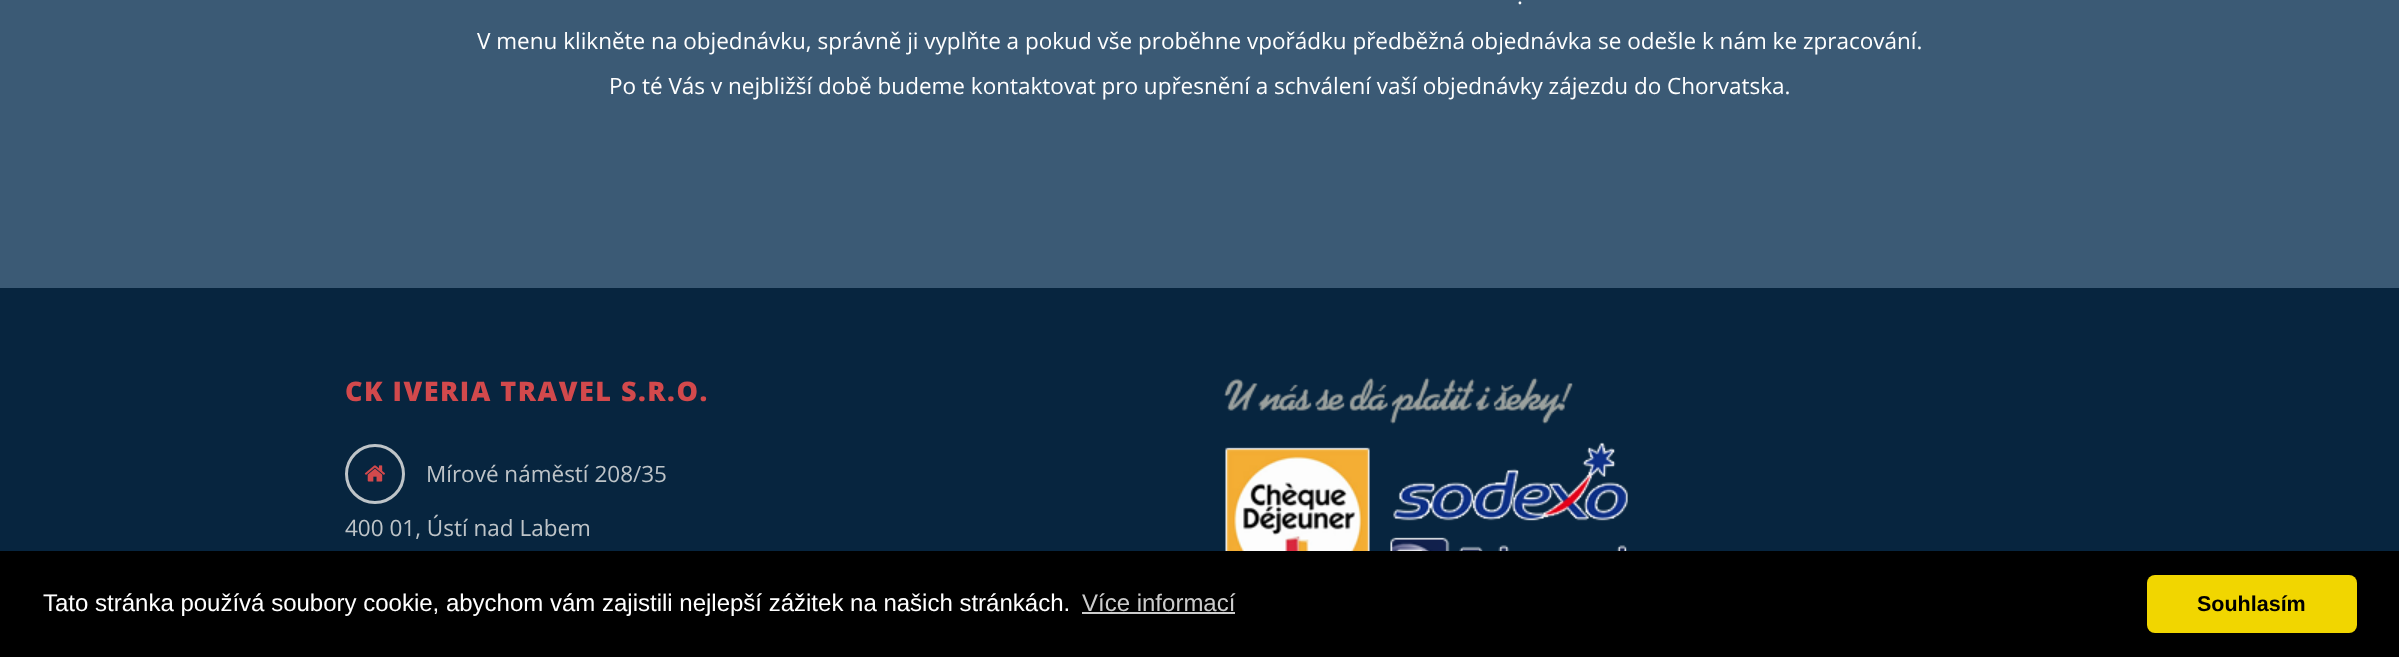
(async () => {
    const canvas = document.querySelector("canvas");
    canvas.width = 2399;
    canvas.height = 657;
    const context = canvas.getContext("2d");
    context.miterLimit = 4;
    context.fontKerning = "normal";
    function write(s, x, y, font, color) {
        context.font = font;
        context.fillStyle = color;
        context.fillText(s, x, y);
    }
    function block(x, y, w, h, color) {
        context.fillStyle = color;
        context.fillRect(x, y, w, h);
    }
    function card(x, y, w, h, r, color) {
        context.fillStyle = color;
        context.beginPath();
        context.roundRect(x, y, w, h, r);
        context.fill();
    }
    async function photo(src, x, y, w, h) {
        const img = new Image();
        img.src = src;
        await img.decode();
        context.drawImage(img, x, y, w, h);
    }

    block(0, 0, 2399, 657, "rgb(59, 90, 117)");
    write(".", 1517, 4, "22.5px Open Sans", "rgb(255, 255, 255)");
    write("V menu klikněte na objednávku, správně ji vyplňte a pokud vše proběhne vpořádku předběžná objednávka se odešle k nám ke zpracování.", 477, 49, "22.5px Open Sans", "rgb(255, 255, 255)");
    write("Po té Vás v nejbližší době budeme kontaktovat pro upřesnění a schválení vaší objednávky zájezdu do Chorvatska.", 609, 94, "22.5px Open Sans", "rgb(255, 255, 255)");
    block(0, 288, 2399, 263, "rgb(7, 37, 63)");
    context.letterSpacing = "1.5px";
    write("CK IVERIA TRAVEL S.R.O.", 345, 401, "800 27px Open Sans", "rgb(210, 73, 76)");
    context.beginPath();
    context.arc(375, 474, 28.5, 0, Math.PI * 2);
    context.strokeStyle = "rgb(190, 196, 200)";
    context.lineWidth = 3;
    context.stroke();
    await photo("media/1.png", 364, 465, 21, 17);
    context.letterSpacing = "0px";
    write("Mírové náměstí 208/35", 426, 482, "22.5px Open Sans", "rgb(190, 196, 200)");
    write("400 01, Ústí nad Labem", 345, 536, "22.5px Open Sans", "rgb(190, 196, 200)");
    await photo("media/2.png", 1224, 377, 404, 174);
    block(0, 551, 2399, 106, "rgb(0, 0, 0)");
    write("Tato stránka používá soubory cookie, abychom vám zajistili nejlepší zážitek na našich stránkách.", 43, 611, "24px Liberation Sans", "rgb(255, 255, 255)");
    write("Více informací", 1082, 611, "24px Liberation Sans", "rgb(204, 204, 204)");
    block(1082, 612, 153, 2, "rgb(204, 204, 204)");
    card(2147, 575, 210, 58, 8, "rgb(241, 214, 0)");
    write("Souhlasím", 2197, 611, "bold 21.5px Liberation Sans", "rgb(0, 0, 0)");
})();
